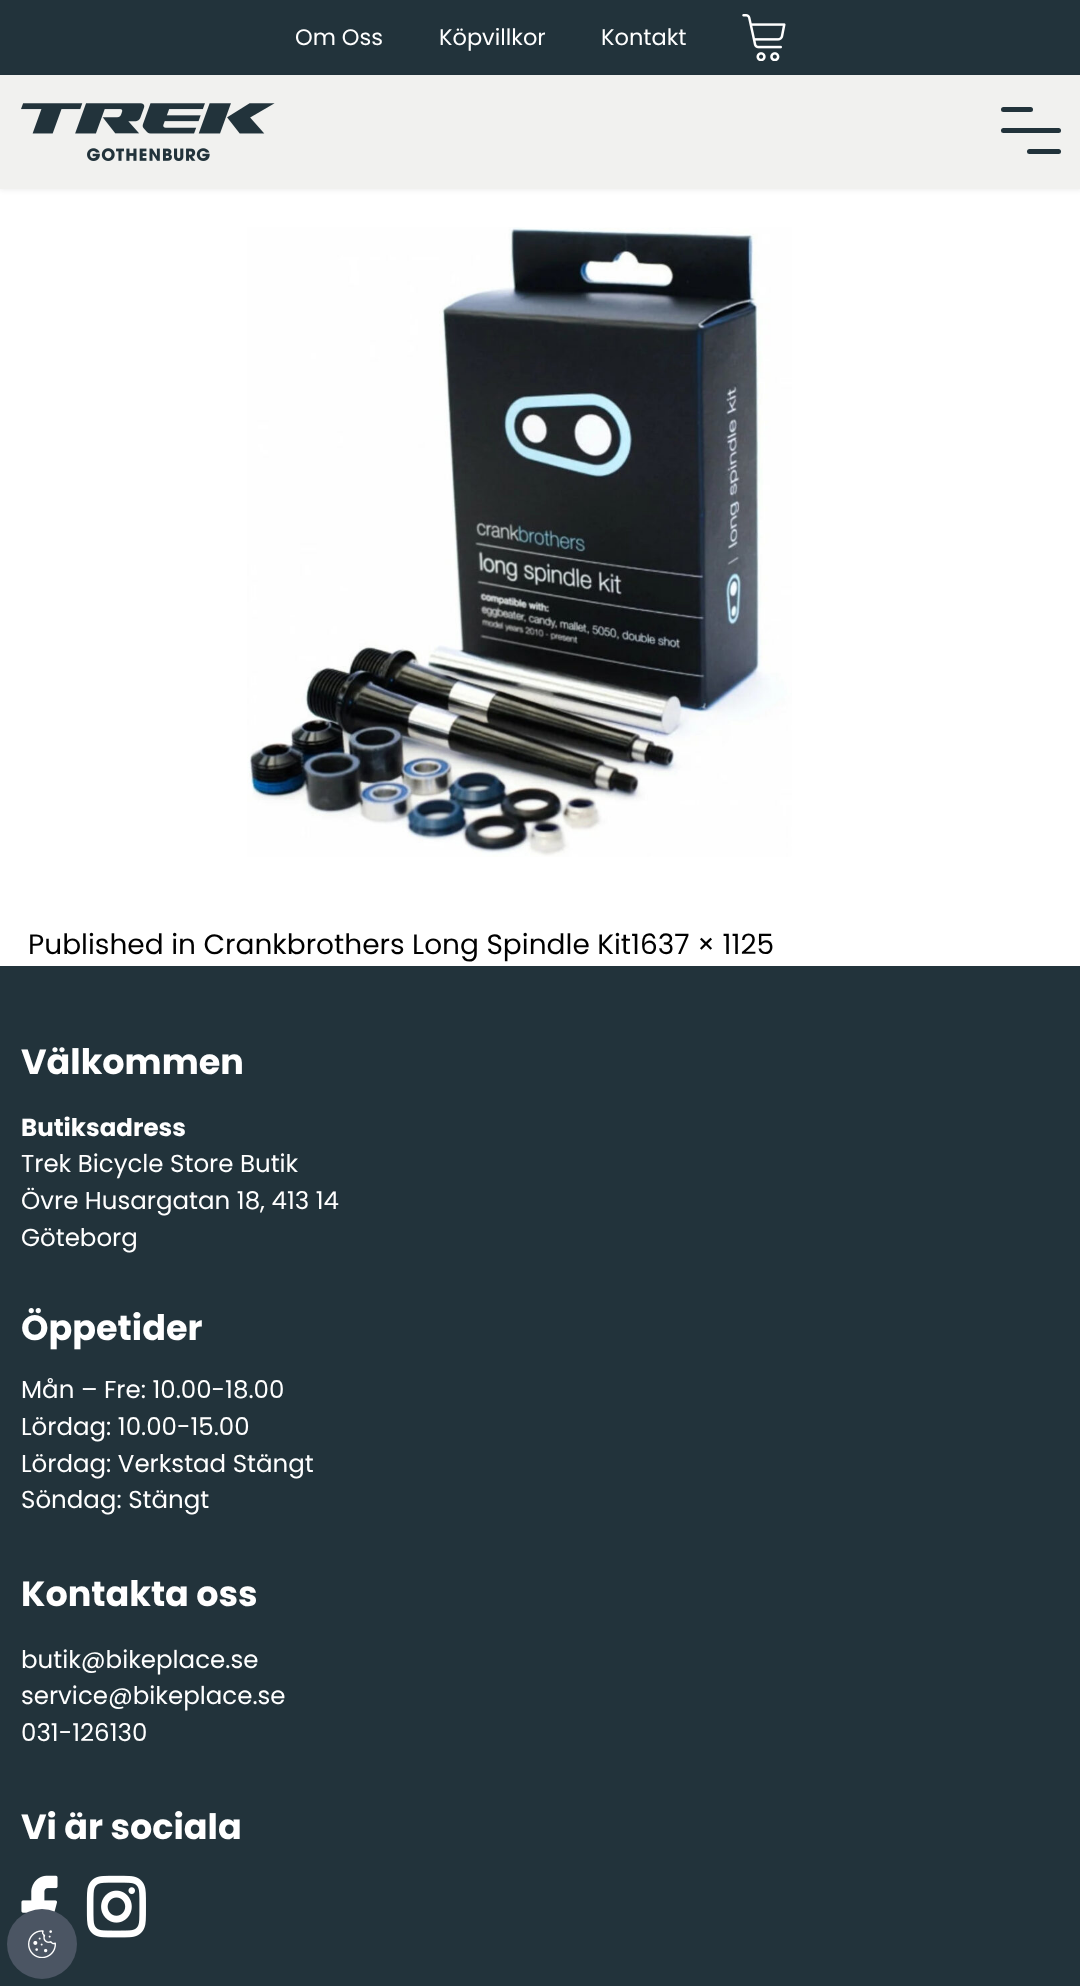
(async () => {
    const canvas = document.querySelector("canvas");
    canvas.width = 1080;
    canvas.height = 1986;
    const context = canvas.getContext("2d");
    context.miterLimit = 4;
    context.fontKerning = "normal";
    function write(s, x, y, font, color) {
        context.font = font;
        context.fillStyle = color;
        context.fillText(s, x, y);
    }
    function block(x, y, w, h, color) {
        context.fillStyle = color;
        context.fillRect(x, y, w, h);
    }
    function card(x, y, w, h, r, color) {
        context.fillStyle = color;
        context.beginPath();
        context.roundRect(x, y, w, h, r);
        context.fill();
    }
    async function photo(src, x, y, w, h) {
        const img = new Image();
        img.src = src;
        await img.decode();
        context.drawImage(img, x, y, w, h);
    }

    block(0, 0, 1080, 1986, "rgb(255, 255, 255)");
    block(0, 0, 1080, 75, "rgb(34, 51, 59)");
    write("Om Oss", 295, 45, "22.5px Poppins", "rgb(255, 255, 255)");
    write("Köpvillkor", 439, 45, "22.5px Poppins", "rgb(255, 255, 255)");
    write("Kontakt", 601, 45, "22.5px Poppins", "rgb(255, 255, 255)");
    await photo("media/1.png", 742, 14, 44, 47);
    context.fillStyle = "rgba(0, 0, 0, 0.05)";
    context.filter = "blur(2px)";
    context.beginPath();
    context.rect(0, 77, 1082, 114);
    context.fill();
    context.filter = "none";
    block(0, 75, 1080, 114, "rgb(241, 241, 239)");
    await photo("media/2.png", 21, 103, 254, 58);
    card(1001, 107, 32, 5, 2.5, "rgb(34, 51, 59)");
    card(1001, 128, 60, 5, 2.5, "rgb(34, 51, 59)");
    card(1027, 149, 34, 5, 2.5, "rgb(34, 51, 59)");
    await photo("media/3.png", 247, 227, 545, 630);
    write("Published in Crankbrothers Long Spindle Kit1637 × 1125", 28, 954, "28px Poppins", "rgb(0, 0, 0)");
    block(0, 966, 1080, 1020, "rgb(34, 51, 59)");
    write("Välkommen", 21, 1074, "bold 35px Poppins", "rgb(255, 255, 255)");
    write("Butiksadress", 21, 1136, "bold 24.5px Poppins", "rgb(255, 255, 255)");
    write("Trek Bicycle Store Butik", 21, 1172, "24.5px Poppins", "rgb(255, 255, 255)");
    write("Övre Husargatan 18, 413 14", 21, 1209, "24.5px Poppins", "rgb(255, 255, 255)");
    write("Göteborg", 21, 1246, "24.5px Poppins", "rgb(255, 255, 255)");
    write("Öppetider", 21, 1340, "bold 35px Poppins", "rgb(255, 255, 255)");
    write("Mån – Fre: 10.00-18.00", 21, 1398, "24.5px Poppins", "rgb(255, 255, 255)");
    write("Lördag: 10.00-15.00", 21, 1435, "24.5px Poppins", "rgb(255, 255, 255)");
    write("Lördag: Verkstad Stängt", 21, 1472, "24.5px Poppins", "rgb(255, 255, 255)");
    write("Söndag: Stängt", 21, 1508, "24.5px Poppins", "rgb(255, 255, 255)");
    write("Kontakta oss", 21, 1606, "bold 35px Poppins", "rgb(255, 255, 255)");
    write("butik@bikeplace.se", 21, 1668, "24.5px Poppins", "rgb(255, 255, 255)");
    write("service@bikeplace.se", 21, 1704, "24.5px Poppins", "rgb(255, 255, 255)");
    write("031-126130", 21, 1741, "24.5px Poppins", "rgb(255, 255, 255)");
    write("Vi är sociala", 21, 1839, "bold 35px Poppins", "rgb(255, 255, 255)");
    await photo("media/4.png", 21, 1875, 37, 38);
    await photo("media/5.png", 86, 1875, 60, 63);
    context.fillStyle = "rgb(75, 85, 99)";
    context.beginPath();
    context.arc(42, 1944, 35, 0, Math.PI * 2);
    context.fill();
    await photo("media/6.png", 28, 1930, 28, 28);
})();
